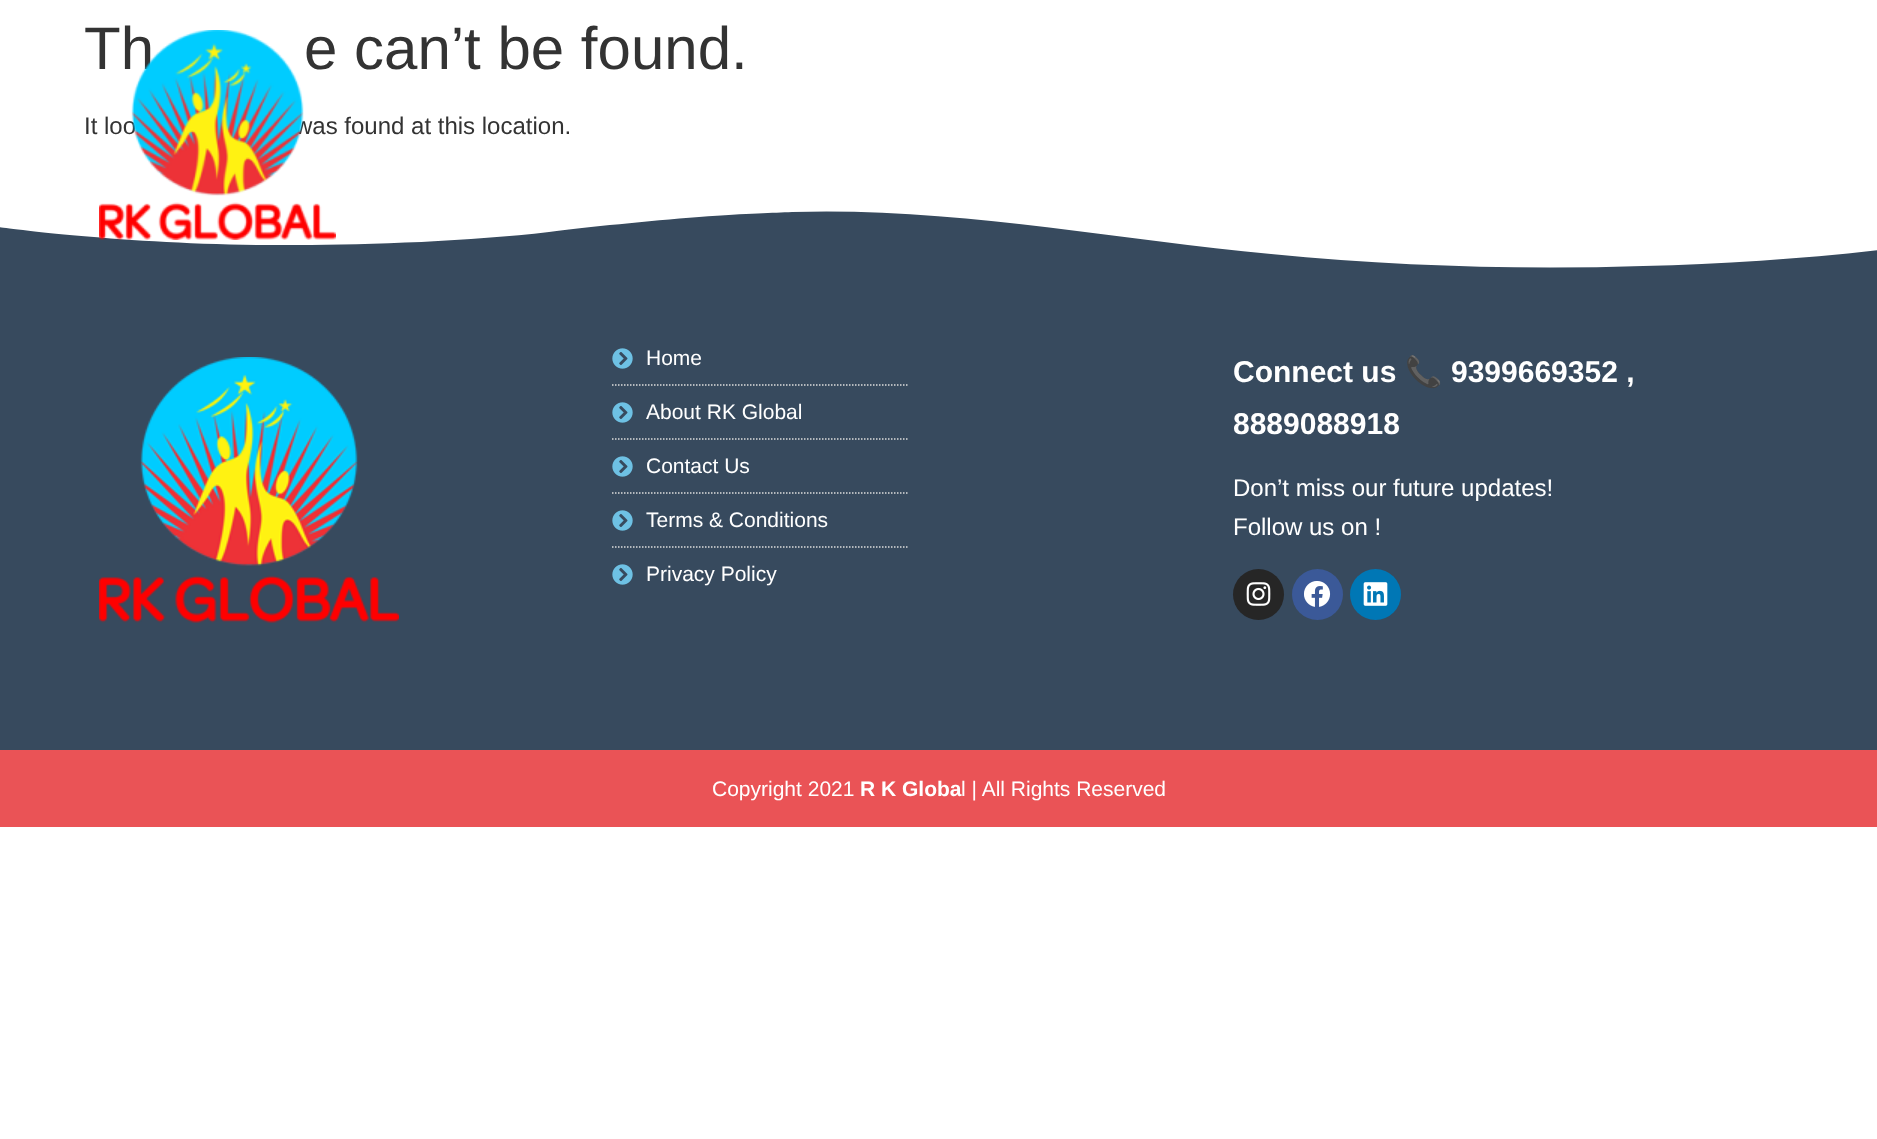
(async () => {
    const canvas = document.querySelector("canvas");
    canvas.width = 1877;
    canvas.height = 1139;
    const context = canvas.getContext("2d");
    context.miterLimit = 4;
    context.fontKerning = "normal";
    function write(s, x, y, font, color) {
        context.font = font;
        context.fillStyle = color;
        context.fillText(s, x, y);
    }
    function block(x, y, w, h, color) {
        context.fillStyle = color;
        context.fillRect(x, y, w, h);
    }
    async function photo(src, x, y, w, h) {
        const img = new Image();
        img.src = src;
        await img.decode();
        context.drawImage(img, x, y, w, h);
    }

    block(0, 0, 1877, 1139, "rgb(255, 255, 255)");
    write("Th", 84, 69, "60px Liberation Sans", "rgb(51, 51, 51)");
    write("e can’t be found.", 304, 69, "60px Liberation Sans", "rgb(51, 51, 51)");
    write("It loo", 84, 134, "24px Liberation Sans", "rgb(51, 51, 51)");
    write("was found at this location.", 295, 134, "24px Liberation Sans", "rgb(51, 51, 51)");
    block(0, 211, 1877, 539, "rgb(55, 74, 94)");
    context.save();
    context.beginPath();
    context.rect(0, 209, 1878, 60);
    context.clip();
    context.fillStyle = "rgb(255, 255, 255)";
    context.beginPath();
    context.moveTo(792, 212);
    context.bezierCurveTo(953, 207, 1112, 239, 1271, 254);
    context.bezierCurveTo(1395, 266, 1519, 270, 1643, 266);
    context.bezierCurveTo(1722, 264, 1801, 259, 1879, 250);
    context.lineTo(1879, 208);
    context.lineTo(-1, 208);
    context.lineTo(-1, 227);
    context.bezierCurveTo(-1, 227, 134, 246, 297, 245);
    context.bezierCurveTo(371, 245, 471, 241, 549, 232);
    context.bezierCurveTo(589, 227, 647, 221, 699, 217);
    context.bezierCurveTo(750, 213, 773, 213, 792, 212);
    context.closePath();
    context.fill();
    context.restore();
    await photo("media/1.png", 99, 30, 237, 210);
    await photo("media/2.png", 99, 357, 300, 266);
    await photo("media/3.png", 612, 348, 21, 21);
    write("Home", 646, 365, "21px Liberation Sans", "rgb(255, 255, 255)");
    context.beginPath();
    context.moveTo(612, 385);
    context.lineTo(907.5, 385);
    context.strokeStyle = "rgb(221, 221, 221)";
    context.lineWidth = 1.5;
    context.setLineDash([1.5, 1.5]);
    context.stroke();
    await photo("media/3.png", 612, 402, 21, 21);
    write("About RK Global", 646, 419, "21px Liberation Sans", "rgb(255, 255, 255)");
    context.beginPath();
    context.moveTo(612, 439);
    context.lineTo(907.5, 439);
    context.stroke();
    await photo("media/3.png", 612, 456, 21, 21);
    write("Contact Us", 646, 473, "21px Liberation Sans", "rgb(255, 255, 255)");
    context.beginPath();
    context.moveTo(612, 493);
    context.lineTo(907.5, 493);
    context.stroke();
    await photo("media/3.png", 612, 510, 21, 21);
    write("Terms & Conditions", 646, 527, "21px Liberation Sans", "rgb(255, 255, 255)");
    context.beginPath();
    context.moveTo(612, 547);
    context.lineTo(907.5, 547);
    context.stroke();
    await photo("media/3.png", 612, 564, 21, 21);
    write("Privacy Policy", 646, 581, "21px Liberation Sans", "rgb(255, 255, 255)");
    write("Connect us", 1233, 382, "bold 30px Liberation Sans", "rgb(255, 255, 255)");
    write("📞", 1405, 382, "bold 30px Noto Color Emoji", "rgb(255, 255, 255)");
    write("9399669352 ,", 1451, 382, "bold 30px Liberation Sans", "rgb(255, 255, 255)");
    write("8889088918", 1233, 434, "bold 30px Liberation Sans", "rgb(255, 255, 255)");
    write("Don’t miss our future updates!", 1233, 496, "24px Liberation Sans", "rgb(255, 255, 255)");
    write("Follow us on !", 1233, 535, "24px Liberation Sans", "rgb(255, 255, 255)");
    context.fillStyle = "rgb(38, 38, 38)";
    context.beginPath();
    context.arc(1258.5, 594.5, 25.5, 0, Math.PI * 2);
    context.fill();
    await photo("media/4.png", 1246, 582, 25, 24);
    context.fillStyle = "rgb(59, 89, 152)";
    context.beginPath();
    context.arc(1317.5, 594.5, 25.5, 0, Math.PI * 2);
    context.fill();
    await photo("media/5.png", 1304, 581, 27, 26);
    context.fillStyle = "rgb(0, 119, 181)";
    context.beginPath();
    context.arc(1375.5, 594.5, 25.5, 0, Math.PI * 2);
    context.fill();
    await photo("media/6.png", 1363, 582, 25, 24);
    block(0, 750, 1877, 77, "rgb(234, 83, 86)");
    write("Copyright 2021", 712, 796, "21px Liberation Sans", "rgb(255, 255, 255)");
    write("R K Globa", 860, 796, "bold 21px Liberation Sans", "rgb(255, 255, 255)");
    write("l | All Rights Reserved", 961, 796, "21px Liberation Sans", "rgb(255, 255, 255)");
})();
